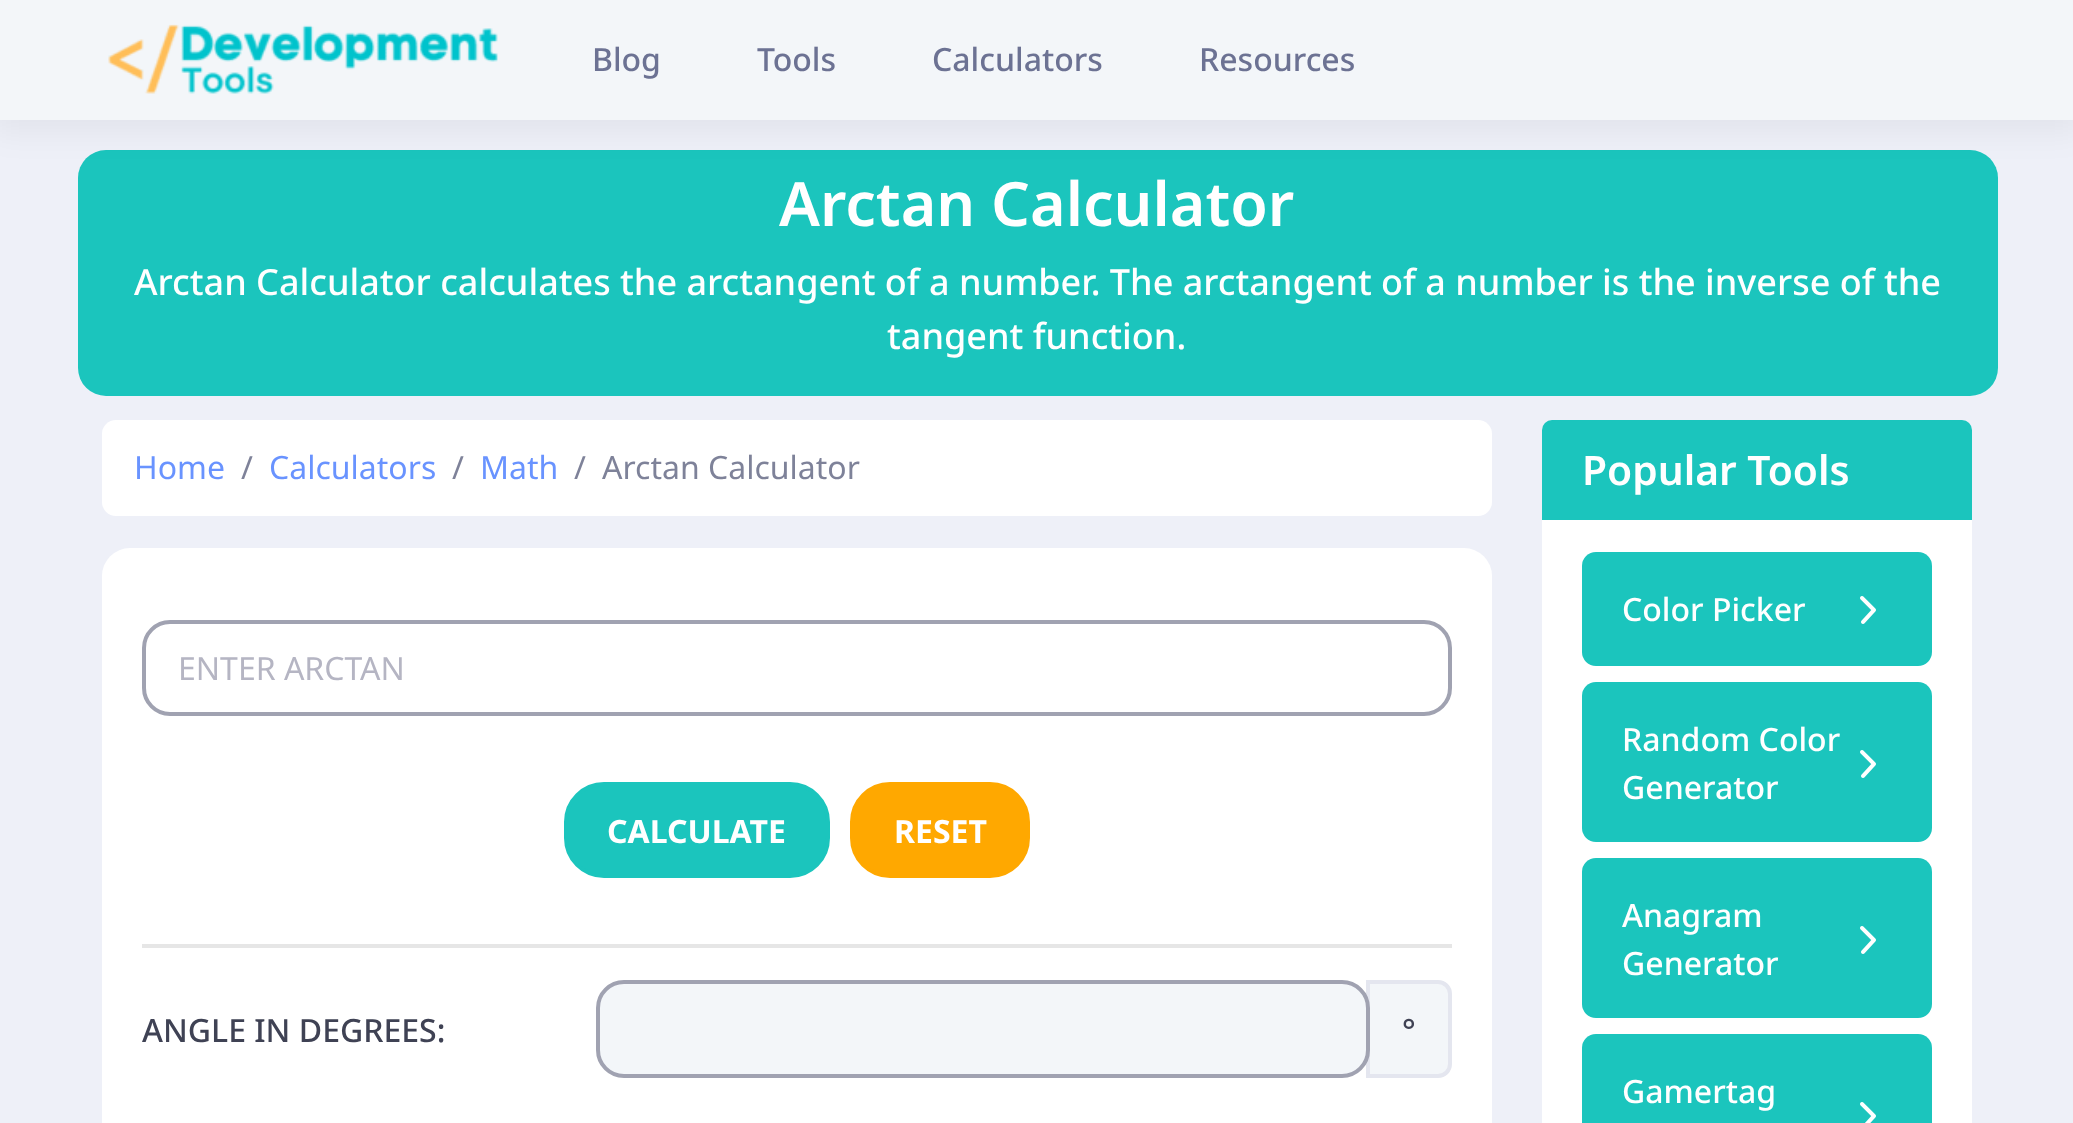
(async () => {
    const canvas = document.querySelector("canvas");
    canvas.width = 2073;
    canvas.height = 1123;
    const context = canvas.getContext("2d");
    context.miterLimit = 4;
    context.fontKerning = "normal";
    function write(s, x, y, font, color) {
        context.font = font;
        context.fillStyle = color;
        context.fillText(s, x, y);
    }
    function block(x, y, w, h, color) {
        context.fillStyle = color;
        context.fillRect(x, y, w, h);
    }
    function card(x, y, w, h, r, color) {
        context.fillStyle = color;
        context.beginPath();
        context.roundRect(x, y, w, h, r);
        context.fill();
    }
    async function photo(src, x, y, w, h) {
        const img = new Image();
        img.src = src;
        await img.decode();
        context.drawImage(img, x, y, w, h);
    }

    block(0, 0, 2073, 1123, "rgb(238, 240, 248)");
    card(78, 150, 1920, 246, 28, "rgb(27, 197, 189)");
    context.fillStyle = "rgba(0, 0, 0, 0.05)";
    context.filter = "blur(16px)";
    context.beginPath();
    context.rect(-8, -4, 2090, 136);
    context.fill();
    context.filter = "none";
    block(0, 0, 2073, 120, "rgb(243, 246, 249)");
    await photo("media/1.png", 108, 24, 390, 70);
    write("Blog", 592, 71, "500 32px Noto Sans", "rgb(108, 114, 147)");
    write("Tools", 757, 71, "500 32px Noto Sans", "rgb(108, 114, 147)");
    write("Calculators", 932, 71, "500 32px Noto Sans", "rgb(108, 114, 147)");
    write("Resources", 1199, 71, "500 32px Noto Sans", "rgb(108, 114, 147)");
    write("Arctan Calculator", 779, 226, "600 61px Noto Sans", "rgb(255, 255, 255)");
    write("Arctan Calculator calculates the arctangent of a number. The arctangent of a number is the inverse of the", 134, 295, "500 36px Noto Sans", "rgb(255, 255, 255)");
    write("tangent function.", 887, 349, "500 36px Noto Sans", "rgb(255, 255, 255)");
    card(102, 420, 1390, 96, 14, "rgb(255, 255, 255)");
    write("Home", 134, 479, "32px Noto Sans", "rgb(105, 147, 255)");
    write("/", 241, 479, "32px Noto Sans", "rgb(126, 130, 153)");
    write("Calculators", 269, 479, "32px Noto Sans", "rgb(105, 147, 255)");
    write("/", 452, 479, "32px Noto Sans", "rgb(126, 130, 153)");
    write("Math", 480, 479, "32px Noto Sans", "rgb(105, 147, 255)");
    write("/", 574, 479, "32px Noto Sans", "rgb(126, 130, 153)");
    write("Arctan Calculator", 602, 479, "32px Noto Sans", "rgb(126, 130, 153)");
    card(102, 548, 1390, 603, 28, "rgb(255, 255, 255)");
    context.beginPath();
    context.roundRect(144, 622, 1306, 92, 26);
    context.strokeStyle = "rgb(160, 162, 177)";
    context.lineWidth = 4;
    context.stroke();
    write("ENTER ARCTAN", 178, 680, "32px Noto Sans", "rgb(181, 181, 195)");
    context.fillStyle = "rgb(27, 197, 189)";
    context.beginPath();
    context.roundRect(566, 784, 262, 92, 38);
    context.fill();
    context.strokeStyle = "rgb(27, 197, 189)";
    context.stroke();
    write("CALCULATE", 607, 843, "bold 32px Noto Sans", "rgb(255, 255, 255)");
    context.fillStyle = "rgb(255, 168, 0)";
    context.beginPath();
    context.roundRect(852, 784, 176, 92, 38);
    context.fill();
    context.strokeStyle = "rgb(255, 168, 0)";
    context.stroke();
    write("RESET", 894, 843, "bold 32px Noto Sans", "rgb(255, 255, 255)");
    block(142, 944, 1310, 4, "rgb(230, 230, 230)");
    write("ANGLE IN DEGREES:", 142, 1042, "500 32px Noto Sans", "rgb(63, 66, 84)");
    context.fillStyle = "rgb(243, 246, 249)";
    context.beginPath();
    context.roundRect(1368, 982, 82, 94, [0, 12, 12, 0]);
    context.fill();
    context.strokeStyle = "rgb(228, 230, 239)";
    context.stroke();
    context.beginPath();
    context.roundRect(598, 982, 770, 94, 26);
    context.fill();
    context.strokeStyle = "rgb(160, 162, 177)";
    context.stroke();
    write("°", 1402, 1042, "500 32px Noto Sans", "rgb(63, 66, 84)");
    card(1542, 420, 430, 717, 14, "rgb(255, 255, 255)");
    context.fillStyle = "rgb(27, 197, 189)";
    context.beginPath();
    context.roundRect(1542, 420, 430, 100, [10, 10, 0, 0]);
    context.fill();
    write("Popular Tools", 1582, 485, "600 40.75px Noto Sans", "rgb(255, 255, 255)");
    card(1582, 552, 350, 114, 14, "rgb(27, 197, 189)");
    write("Color Picker", 1622, 621, "500 32px Noto Sans", "rgb(255, 255, 255)");
    await photo("media/2.png", 1860, 596, 16, 28);
    card(1582, 682, 350, 160, 14, "rgb(27, 197, 189)");
    write("Random Color", 1622, 751, "500 32px Noto Sans", "rgb(255, 255, 255)");
    write("Generator", 1622, 799, "500 32px Noto Sans", "rgb(255, 255, 255)");
    await photo("media/2.png", 1860, 750, 16, 28);
    card(1582, 858, 350, 160, 14, "rgb(27, 197, 189)");
    write("Anagram", 1622, 927, "500 32px Noto Sans", "rgb(255, 255, 255)");
    write("Generator", 1622, 975, "500 32px Noto Sans", "rgb(255, 255, 255)");
    await photo("media/2.png", 1860, 926, 16, 28);
    card(1582, 1034, 350, 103, 14, "rgb(27, 197, 189)");
    write("Gamertag", 1622, 1103, "500 32px Noto Sans", "rgb(255, 255, 255)");
    await photo("media/3.png", 1860, 1102, 16, 21);
})();
